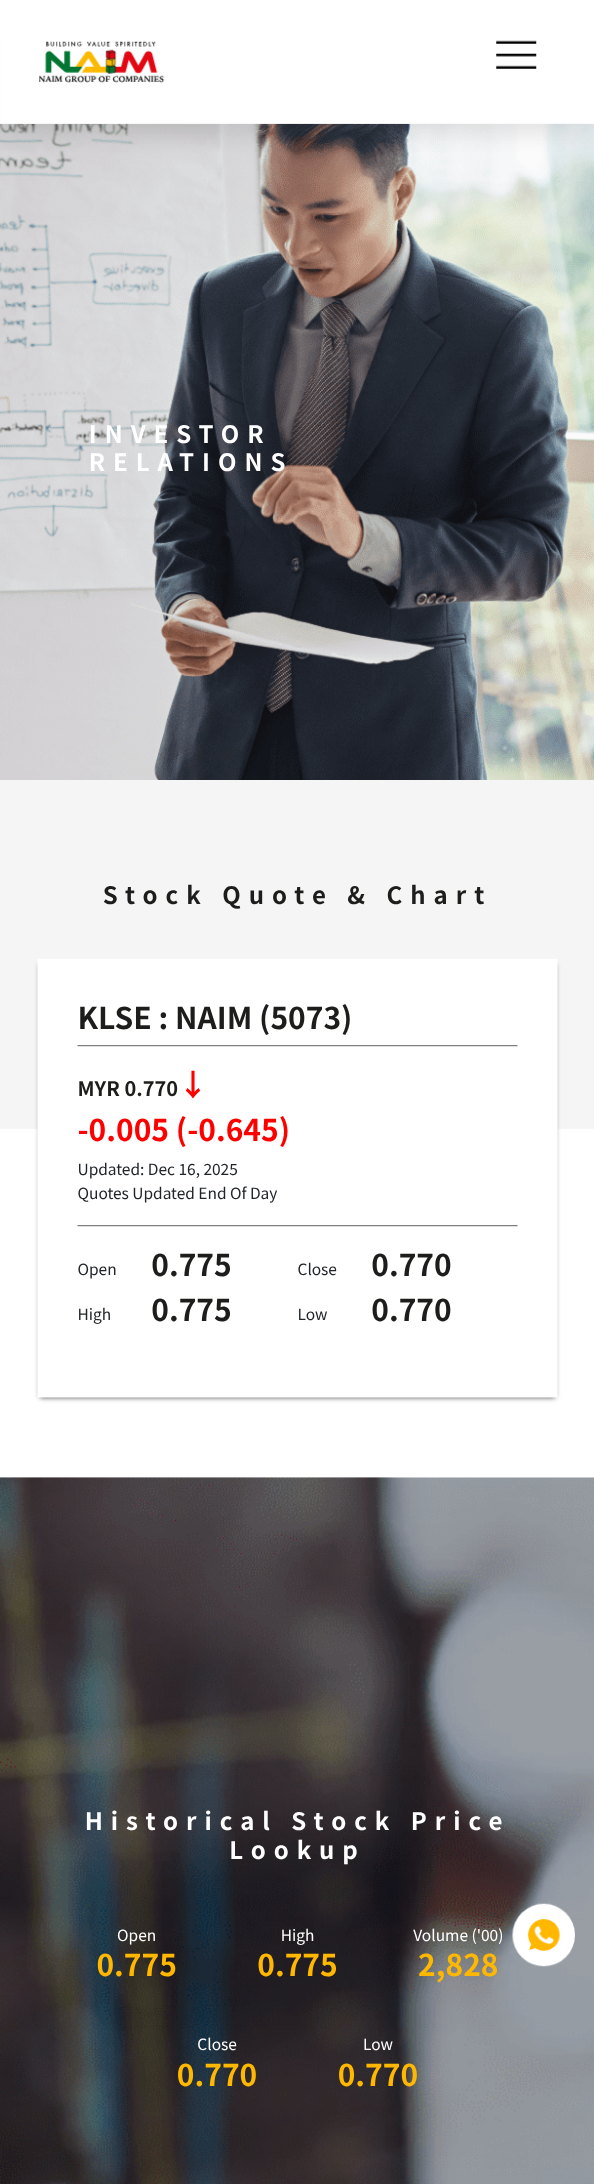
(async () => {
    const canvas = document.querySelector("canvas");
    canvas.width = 594;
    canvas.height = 2184;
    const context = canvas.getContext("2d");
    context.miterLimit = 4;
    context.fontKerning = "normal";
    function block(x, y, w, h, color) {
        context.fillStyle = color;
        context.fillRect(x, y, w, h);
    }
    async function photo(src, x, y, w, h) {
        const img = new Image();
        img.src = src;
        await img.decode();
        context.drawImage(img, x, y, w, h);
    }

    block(0, 0, 594, 2184, "rgb(255, 255, 255)");
    await photo("media/1.png", 0, 40, 594, 2144);
})();
